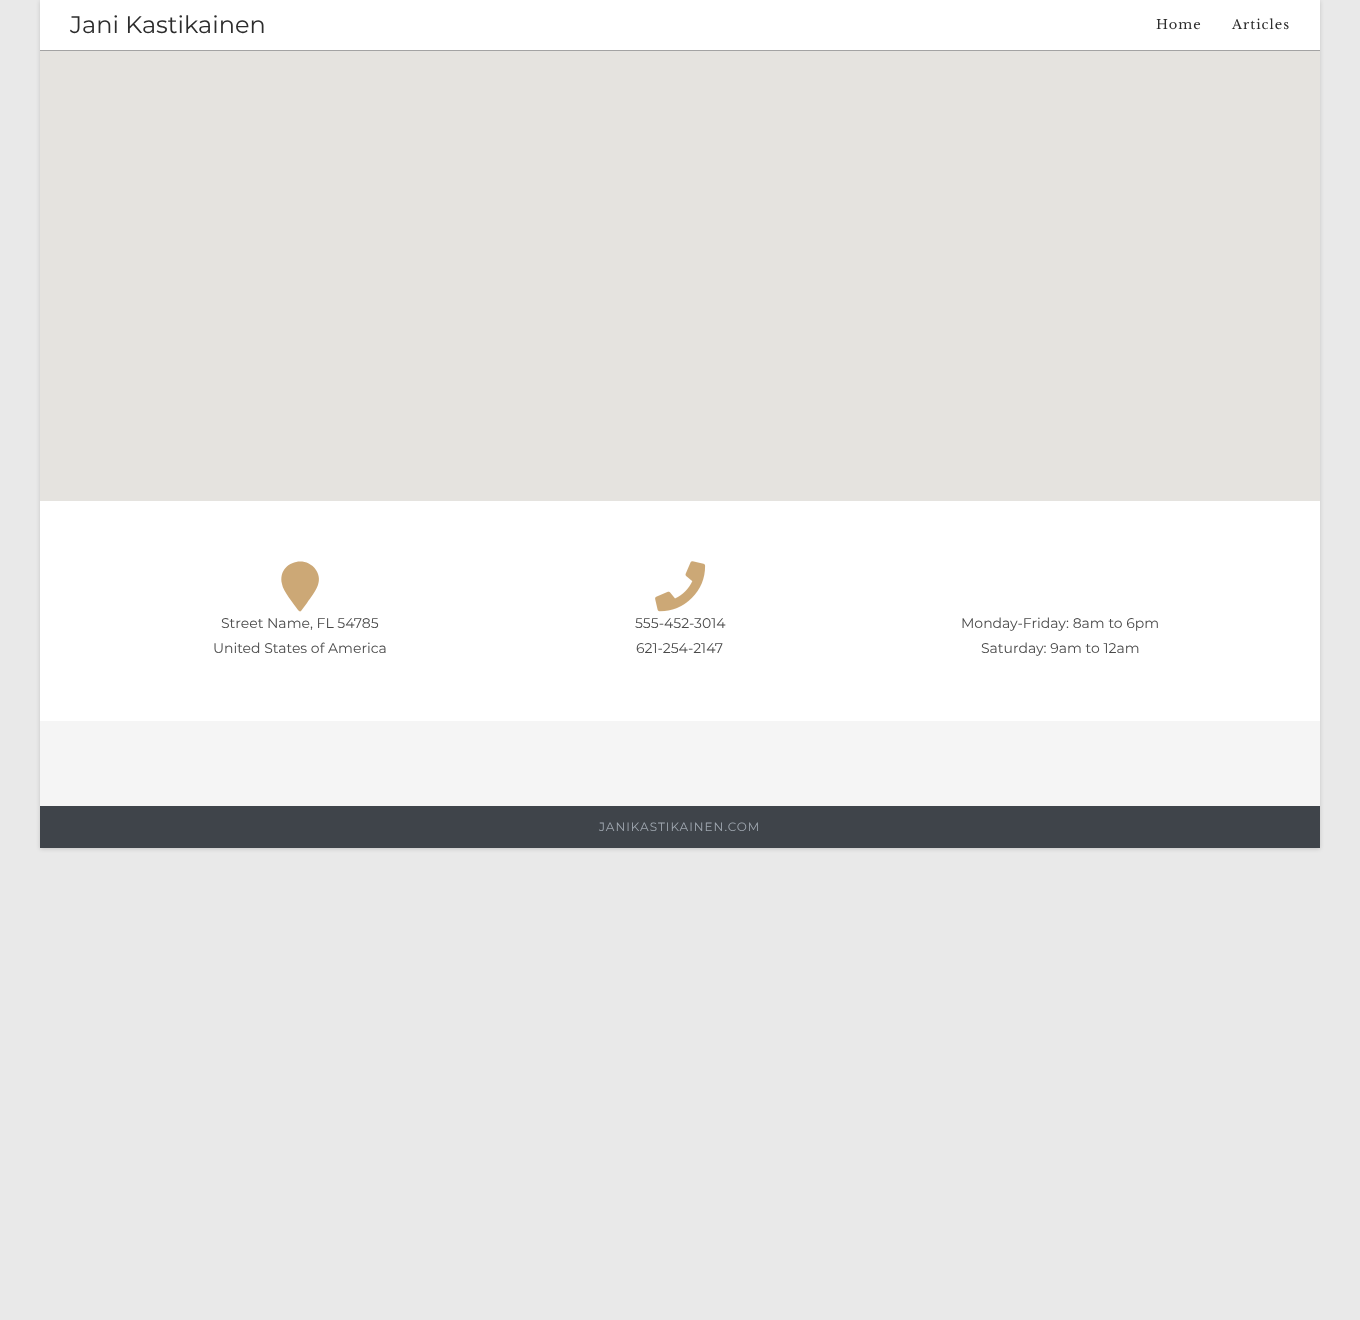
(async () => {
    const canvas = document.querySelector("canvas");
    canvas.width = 1360;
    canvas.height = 1320;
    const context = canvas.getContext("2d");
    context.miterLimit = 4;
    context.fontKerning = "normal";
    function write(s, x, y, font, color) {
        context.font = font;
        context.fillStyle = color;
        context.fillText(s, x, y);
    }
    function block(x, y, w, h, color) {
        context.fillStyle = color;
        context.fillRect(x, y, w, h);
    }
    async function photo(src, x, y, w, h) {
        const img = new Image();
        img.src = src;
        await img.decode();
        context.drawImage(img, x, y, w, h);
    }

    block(0, 0, 1360, 1320, "rgb(233, 233, 233)");
    context.fillStyle = "rgba(0, 0, 0, 0.15)";
    context.filter = "blur(2px)";
    context.beginPath();
    context.rect(40, 1, 1280, 848);
    context.fill();
    context.filter = "none";
    block(40, 0, 1280, 721, "rgb(255, 255, 255)");
    block(40, 50, 1280, 1, "rgb(163, 163, 163)");
    write("Jani Kastikainen", 70, 33, "24px Montserrat", "rgb(44, 44, 44)");
    context.letterSpacing = "1px";
    write("Home", 1156, 29, "13px Libre Baskerville", "rgb(44, 44, 44)");
    write("Articles", 1232, 29, "13px Libre Baskerville", "rgb(44, 44, 44)");
    block(40, 51, 1280, 450, "rgb(229, 227, 223)");
    context.fillStyle = "rgb(204, 168, 118)";
    context.beginPath();
    context.moveTo(298, 610);
    context.bezierCurveTo(294, 604, 283, 591, 282, 584);
    context.bezierCurveTo(277, 564, 304, 553, 316, 570);
    context.bezierCurveTo(324, 582, 314, 593, 307, 603);
    context.lineTo(301, 611);
    context.bezierCurveTo(300, 612, 299, 611, 298, 610);
    context.closePath();
    context.fill();
    context.letterSpacing = "0px";
    write("Street Name, FL 54785", 221, 628, "14px Montserrat", "rgb(74, 74, 74)");
    write("United States of America", 213, 653, "14px Montserrat", "rgb(74, 74, 74)");
    await photo("media/1.png", 655, 561, 51, 51);
    write("555-452-3014", 635, 628, "14px Montserrat", "rgb(74, 74, 74)");
    write("621-254-2147", 636, 653, "14px Montserrat", "rgb(74, 74, 74)");
    write("Monday-Friday: 8am to 6pm", 961, 628, "14px Montserrat", "rgb(74, 74, 74)");
    write("Saturday: 9am to 12am", 981, 653, "14px Montserrat", "rgb(74, 74, 74)");
    block(40, 721, 1280, 85, "rgb(245, 245, 245)");
    block(40, 806, 1280, 42, "rgb(63, 68, 74)");
    context.letterSpacing = "1px";
    write("JANIKASTIKAINEN.COM", 599, 831, "12px Montserrat", "rgb(160, 168, 177)");
})();
